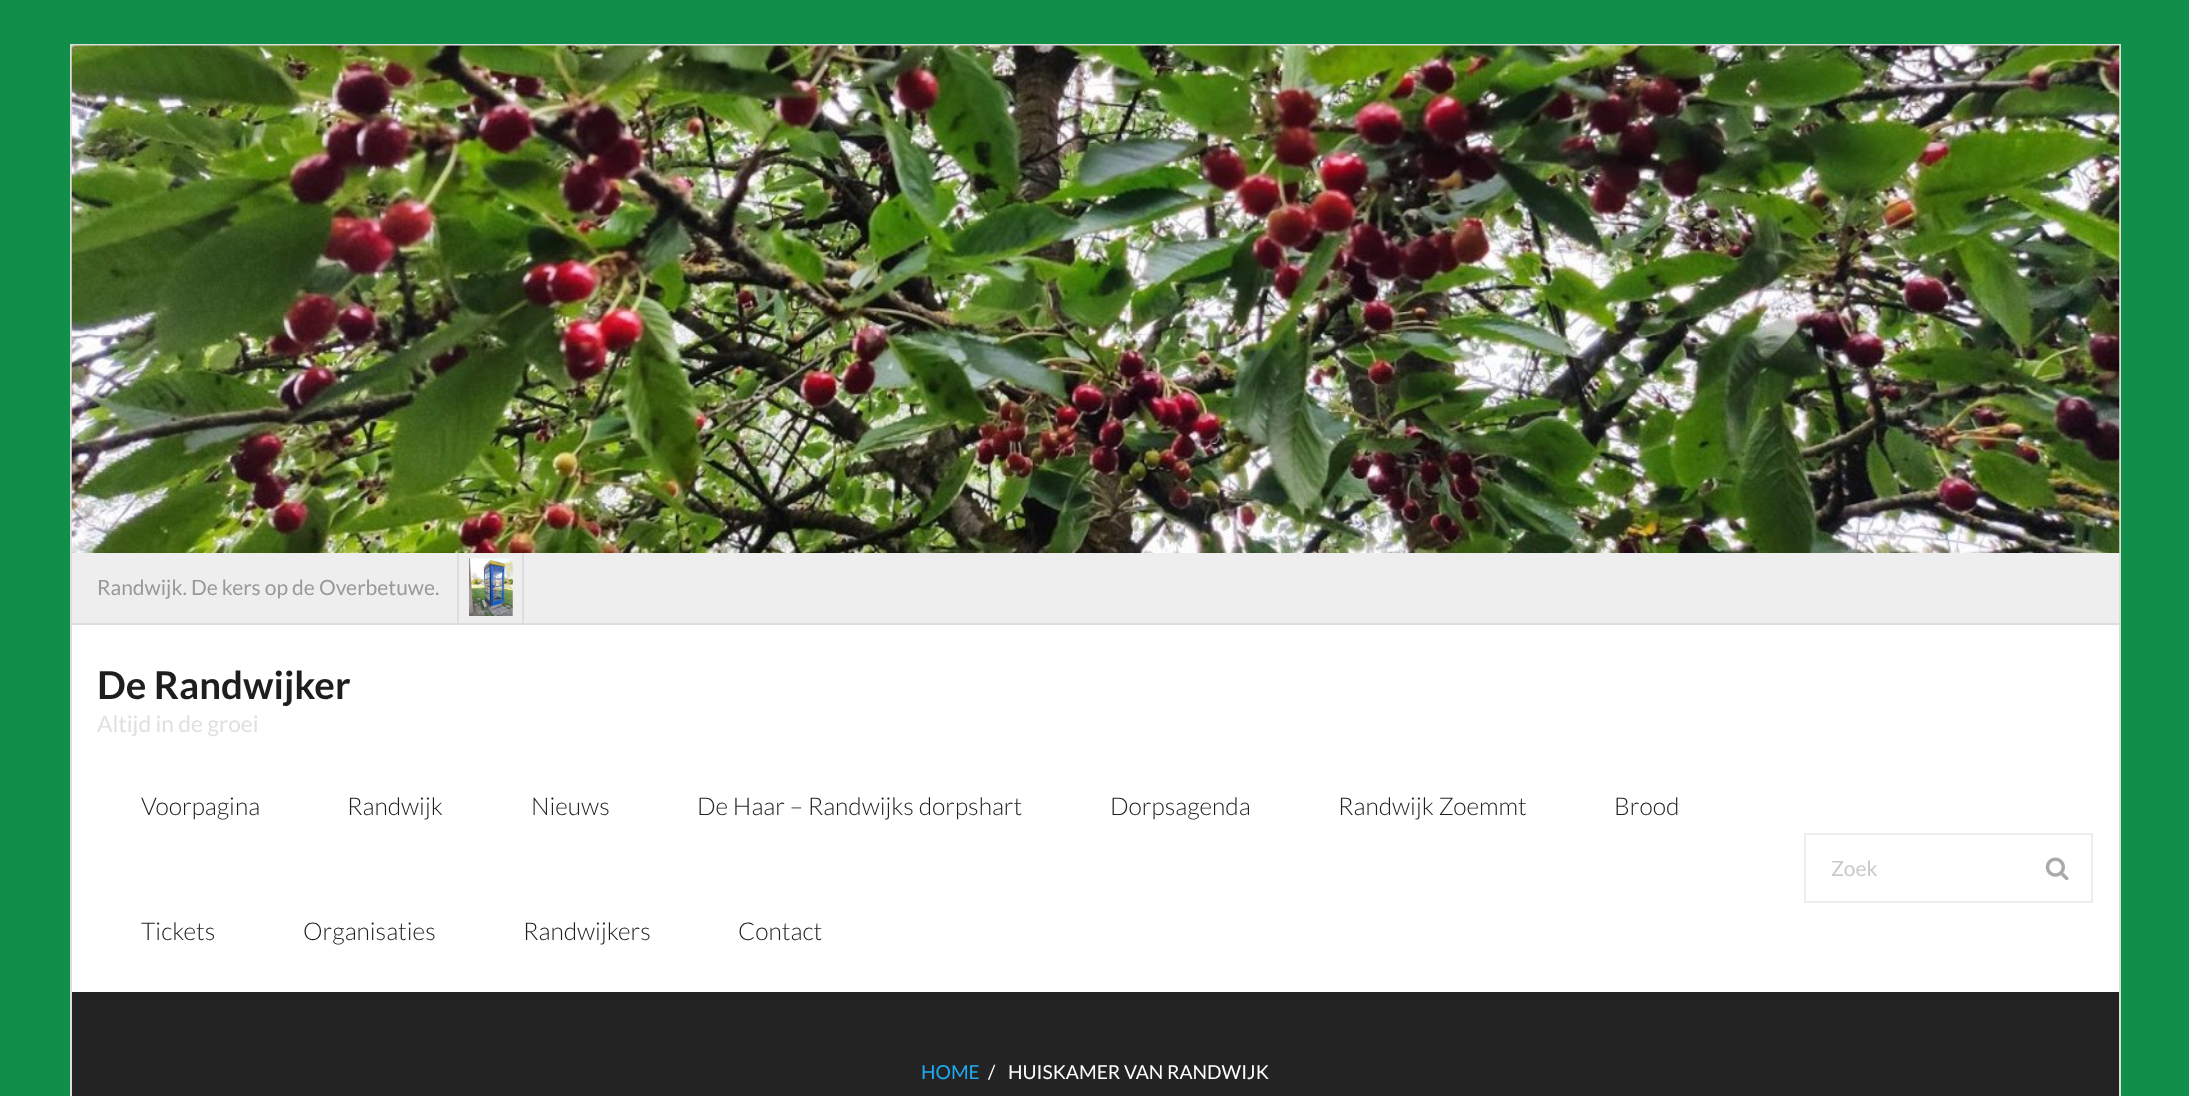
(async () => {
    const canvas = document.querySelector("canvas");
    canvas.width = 2189;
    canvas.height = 1096;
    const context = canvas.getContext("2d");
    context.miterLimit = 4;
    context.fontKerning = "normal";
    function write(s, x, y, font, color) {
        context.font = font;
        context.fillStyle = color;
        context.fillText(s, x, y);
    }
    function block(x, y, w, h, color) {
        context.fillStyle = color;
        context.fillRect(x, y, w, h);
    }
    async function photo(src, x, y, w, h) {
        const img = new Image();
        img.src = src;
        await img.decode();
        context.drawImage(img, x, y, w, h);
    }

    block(0, 0, 2189, 1096, "rgb(17, 142, 73)");
    block(72, 553, 2047, 70, "rgb(238, 238, 238)");
    context.strokeStyle = "rgb(221, 221, 221)";
    context.lineWidth = 2;
    context.strokeRect(71, 45, 2049, 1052);
    await photo("media/1.png", 71, 45, 2049, 508);
    block(72, 623, 2047, 2, "rgb(221, 221, 221)");
    write("Randwijk. De kers op de Overbetuwe.", 97, 595, "21px Lato", "rgb(153, 153, 153)");
    await photo("media/2.png", 469, 558, 44, 58);
    block(522, 553, 2, 70, "rgb(221, 221, 221)");
    block(457, 553, 2, 70, "rgb(221, 221, 221)");
    block(72, 625, 2047, 367, "rgb(255, 255, 255)");
    write("De Randwijker", 97, 699, "bold 38.5px Lato", "rgb(30, 30, 30)");
    write("Altijd in de groei", 97, 732, "22.75px Lato", "rgb(224, 224, 224)");
    write("Voorpagina", 141, 815, "300 24.5px Lato", "rgb(30, 30, 30)");
    write("Randwijk", 347, 815, "300 24.5px Lato", "rgb(30, 30, 30)");
    write("Nieuws", 531, 815, "300 24.5px Lato", "rgb(30, 30, 30)");
    write("De Haar – Randwijks dorpshart", 697, 815, "300 24.5px Lato", "rgb(30, 30, 30)");
    write("Dorpsagenda", 1110, 815, "300 24.5px Lato", "rgb(30, 30, 30)");
    write("Randwijk Zoemmt", 1338, 815, "300 24.5px Lato", "rgb(30, 30, 30)");
    write("Brood", 1614, 815, "300 24.5px Lato", "rgb(30, 30, 30)");
    write("Tickets", 141, 940, "300 24.5px Lato", "rgb(30, 30, 30)");
    write("Organisaties", 303, 940, "300 24.5px Lato", "rgb(30, 30, 30)");
    write("Randwijkers", 523, 940, "300 24.5px Lato", "rgb(30, 30, 30)");
    write("Contact", 738, 940, "300 24.5px Lato", "rgb(30, 30, 30)");
    context.strokeStyle = "rgb(238, 238, 238)";
    context.strokeRect(1805, 834, 287, 68);
    write("Zoek", 1831, 876, "21px Lato", "rgb(202, 202, 202)");
    await photo("media/3.png", 2045, 857, 24, 24);
    block(72, 992, 2047, 104, "rgb(35, 35, 35)");
    write("HOME", 921, 1079, "19.25px Lato", "rgb(30, 170, 241)");
    write("/", 988, 1079, "19.25px Lato", "rgb(255, 255, 255)");
    write("HUISKAMER VAN RANDWIJK", 1008, 1079, "19.25px Lato", "rgb(255, 255, 255)");
})();
